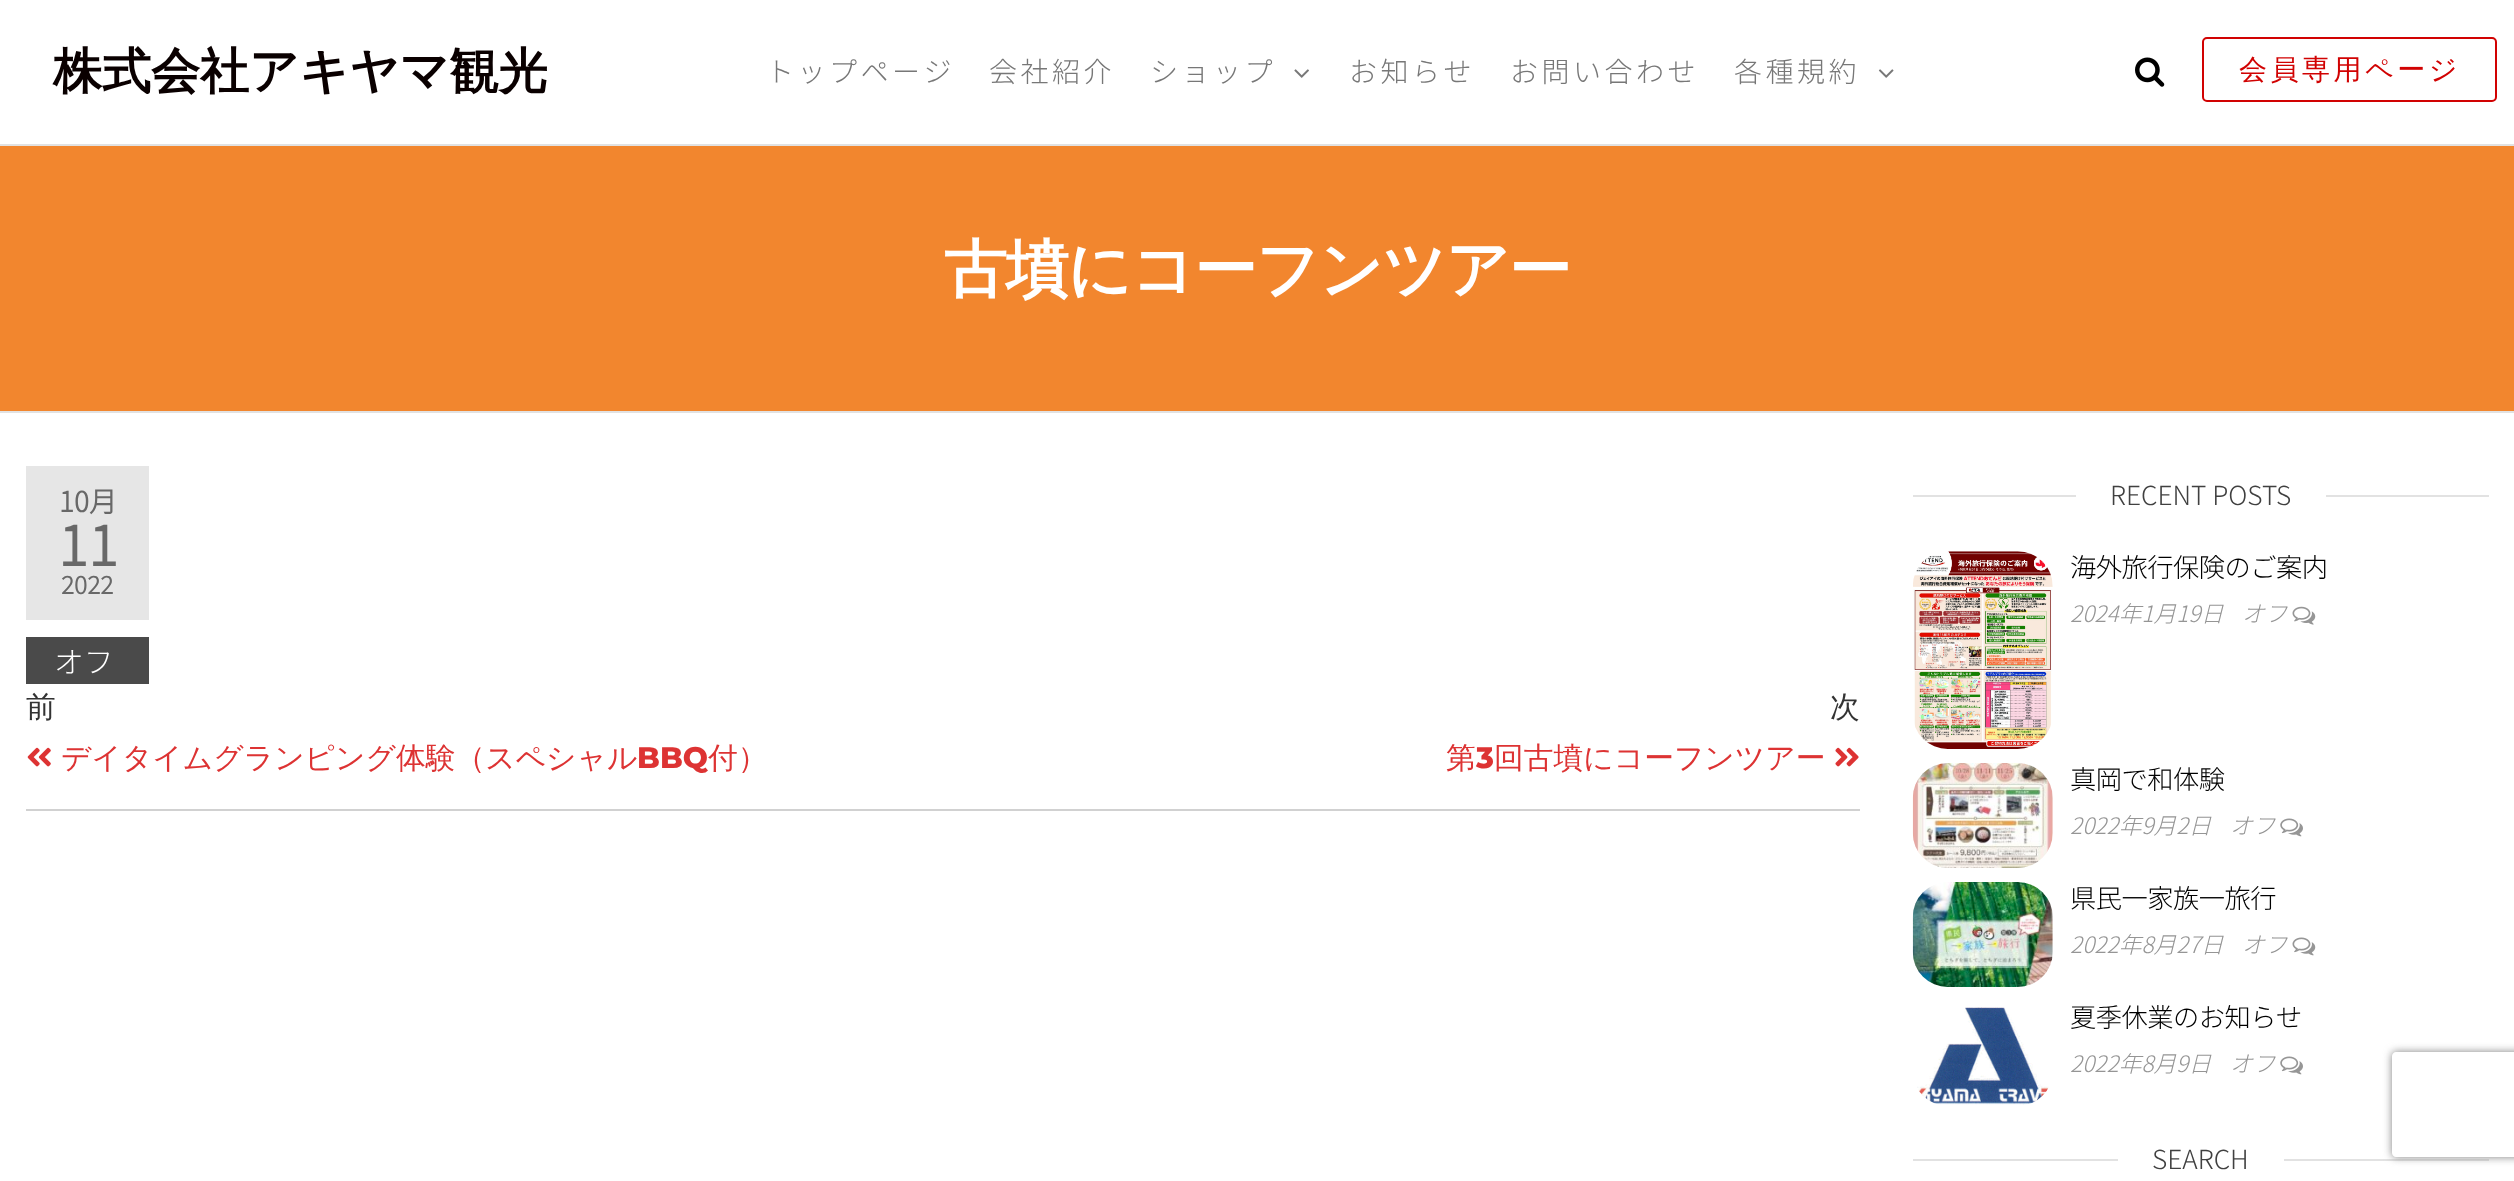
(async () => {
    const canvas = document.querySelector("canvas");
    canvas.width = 2514;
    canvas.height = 1181;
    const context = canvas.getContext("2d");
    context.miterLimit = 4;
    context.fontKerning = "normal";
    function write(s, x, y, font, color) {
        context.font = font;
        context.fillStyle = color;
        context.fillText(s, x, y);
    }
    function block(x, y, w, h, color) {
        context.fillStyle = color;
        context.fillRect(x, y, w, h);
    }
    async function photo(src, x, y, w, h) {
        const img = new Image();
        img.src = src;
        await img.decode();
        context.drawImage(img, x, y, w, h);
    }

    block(0, 0, 2514, 1181, "rgb(255, 255, 255)");
    block(0, 144, 2514, 2, "rgb(226, 226, 226)");
    write("株式会社アキヤマ観光", 53, 88, "bold 49px WenQuanYi Zen Hei", "rgb(10, 0, 0)");
    context.letterSpacing = "3.5px";
    write("トップページ", 766, 82, "100 28px Noto Sans JP", "rgb(119, 119, 119)");
    write("会社紹介", 989, 82, "100 28px Noto Sans JP", "rgb(119, 119, 119)");
    write("ショップ", 1150, 82, "100 28px Noto Sans JP", "rgb(119, 119, 119)");
    await photo("media/1.png", 1294, 69, 15, 9);
    write("お知らせ", 1349, 82, "100 28px Noto Sans JP", "rgb(119, 119, 119)");
    write("お問い合わせ", 1510, 82, "100 28px Noto Sans JP", "rgb(119, 119, 119)");
    write("各種規約", 1734, 82, "100 28px Noto Sans JP", "rgb(119, 119, 119)");
    await photo("media/2.png", 1878, 69, 16, 9);
    await photo("media/3.png", 2135, 57, 30, 30);
    context.beginPath();
    context.roundRect(2203, 38, 293, 63, 4);
    context.strokeStyle = "rgb(209, 2, 2)";
    context.lineWidth = 2;
    context.stroke();
    write("会員専用ページ", 2239, 79, "500 28px WenQuanYi Zen Hei", "rgb(209, 2, 2)");
    block(0, 411, 2514, 2, "rgb(226, 226, 226)");
    block(0, 146, 2514, 265, "rgb(242, 134, 46)");
    context.letterSpacing = "-1.25px";
    write("古墳にコーフンツアー", 944, 291, "bold 63px WenQuanYi Zen Hei", "rgb(255, 255, 255)");
    block(26, 466, 123, 154, "rgb(230, 230, 230)");
    context.letterSpacing = "0px";
    write("10月", 59, 512, "bold 28px Noto Sans JP", "rgb(104, 104, 104)");
    write("11", 58, 566, "bold 56px Noto Sans JP", "rgb(104, 104, 104)");
    write("2022", 61, 594, "bold 24.5px Noto Sans JP", "rgb(104, 104, 104)");
    block(26, 637, 123, 47, "rgb(74, 74, 74)");
    write("オフ", 54, 673, "100 29.75px Noto Sans JP", "rgb(255, 255, 255)");
    block(26, 809, 1834, 2, "rgb(209, 209, 209)");
    write("前", 26, 717, "500 29.75px WenQuanYi Zen Hei", "rgb(51, 51, 51)");
    await photo("media/4.png", 27, 747, 24, 20);
    write("デイタイムグランピング体験（スペシャル", 61, 768, "500 29.75px WenQuanYi Zen Hei", "rgb(221, 51, 51)");
    write("BBQ", 637, 768, "800 29.75px Montserrat", "rgb(221, 51, 51)");
    write("付）", 708, 768, "500 29.75px WenQuanYi Zen Hei", "rgb(221, 51, 51)");
    write("次", 1830, 717, "500 29.75px WenQuanYi Zen Hei", "rgb(51, 51, 51)");
    write("第", 1446, 768, "500 29.75px WenQuanYi Zen Hei", "rgb(221, 51, 51)");
    write("3", 1476, 768, "800 29.75px Montserrat", "rgb(221, 51, 51)");
    write("回古墳にコーフンツアー", 1494, 768, "500 29.75px WenQuanYi Zen Hei", "rgb(221, 51, 51)");
    await photo("media/5.png", 1835, 747, 24, 20);
    block(1913, 495, 576, 2, "rgb(226, 226, 226)");
    block(2076, 495, 250, 2, "rgb(255, 255, 255)");
    write("RECENT POSTS", 2110, 505, "100 26.25px Noto Sans JP", "rgb(64, 64, 64)");
    await photo("media/6.png", 1913, 551, 140, 198);
    context.letterSpacing = "-0.5px";
    write("海外旅行保険のご案内", 2070, 577, "100 26.25px Noto Sans JP", "rgb(0, 0, 0)");
    context.letterSpacing = "0px";
    write("2024年1月19日", 2070, 622, "italic 100 22.75px Noto Sans JP", "rgb(149, 149, 149)");
    write("オフ", 2242, 622, "italic 100 22.75px Noto Sans JP", "rgb(149, 149, 149)");
    await photo("media/7.png", 2292, 606, 24, 19);
    await photo("media/8.png", 1912, 763, 141, 105);
    context.letterSpacing = "-0.5px";
    write("真岡で和体験", 2070, 789, "100 26.25px Noto Sans JP", "rgb(0, 0, 0)");
    context.letterSpacing = "0px";
    write("2022年9月2日", 2070, 834, "italic 100 22.75px Noto Sans JP", "rgb(149, 149, 149)");
    write("オフ", 2230, 834, "italic 100 22.75px Noto Sans JP", "rgb(149, 149, 149)");
    await photo("media/9.png", 2280, 818, 23, 19);
    await photo("media/10.png", 1912, 882, 141, 105);
    context.letterSpacing = "-0.5px";
    write("県民一家族一旅行", 2070, 908, "100 26.25px Noto Sans JP", "rgb(0, 0, 0)");
    context.letterSpacing = "0px";
    write("2022年8月27日", 2070, 953, "italic 100 22.75px Noto Sans JP", "rgb(149, 149, 149)");
    write("オフ", 2242, 953, "italic 100 22.75px Noto Sans JP", "rgb(149, 149, 149)");
    await photo("media/11.png", 2292, 937, 24, 19);
    await photo("media/12.png", 1917, 1007, 132, 98);
    context.letterSpacing = "-0.5px";
    write("夏季休業のお知らせ", 2070, 1027, "100 26.25px Noto Sans JP", "rgb(0, 0, 0)");
    context.letterSpacing = "0px";
    write("2022年8月9日", 2070, 1072, "italic 100 22.75px Noto Sans JP", "rgb(149, 149, 149)");
    write("オフ", 2230, 1072, "italic 100 22.75px Noto Sans JP", "rgb(149, 149, 149)");
    await photo("media/9.png", 2280, 1056, 23, 19);
    block(1913, 1159, 576, 2, "rgb(226, 226, 226)");
    block(2118, 1159, 166, 2, "rgb(255, 255, 255)");
    write("SEARCH", 2152, 1169, "100 26.25px Noto Sans JP", "rgb(64, 64, 64)");
    context.save();
    context.beginPath();
    context.moveTo(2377, 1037);
    context.lineTo(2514, 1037);
    context.lineTo(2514, 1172);
    context.lineTo(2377, 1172);
    context.closePath();
    context.moveTo(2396, 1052);
    context.lineTo(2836, 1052);
    context.bezierCurveTo(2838, 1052, 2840, 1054, 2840, 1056);
    context.lineTo(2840, 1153);
    context.bezierCurveTo(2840, 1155, 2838, 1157, 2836, 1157);
    context.lineTo(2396, 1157);
    context.bezierCurveTo(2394, 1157, 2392, 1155, 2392, 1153);
    context.lineTo(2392, 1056);
    context.bezierCurveTo(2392, 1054, 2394, 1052, 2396, 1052);
    context.closePath();
    context.clip("evenodd");
    context.fillStyle = "rgb(128, 128, 128)";
    context.filter = "blur(4.5px)";
    context.beginPath();
    context.roundRect(2392, 1052, 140, 105, 4);
    context.fill();
    context.filter = "none";
    context.restore();
})();
